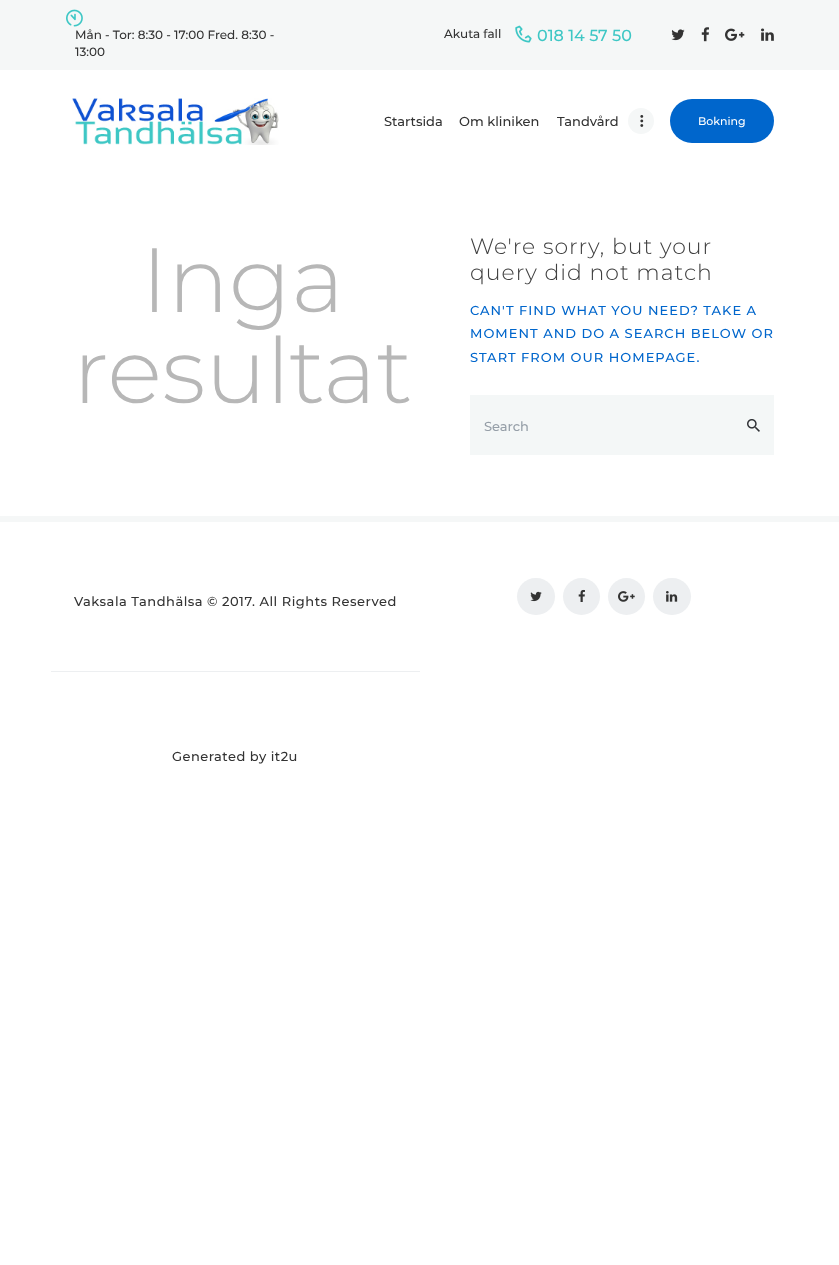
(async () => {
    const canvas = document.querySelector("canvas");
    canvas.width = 839;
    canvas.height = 1265;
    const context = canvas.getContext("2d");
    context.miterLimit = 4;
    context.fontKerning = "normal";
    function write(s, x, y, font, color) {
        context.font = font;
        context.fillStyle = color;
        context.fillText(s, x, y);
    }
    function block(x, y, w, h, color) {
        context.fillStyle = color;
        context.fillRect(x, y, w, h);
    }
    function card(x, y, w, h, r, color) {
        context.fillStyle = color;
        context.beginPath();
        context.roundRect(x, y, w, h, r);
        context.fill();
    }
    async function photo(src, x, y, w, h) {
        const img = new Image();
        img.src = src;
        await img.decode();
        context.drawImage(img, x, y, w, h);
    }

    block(0, 0, 839, 1265, "rgb(255, 255, 255)");
    block(0, 0, 839, 70, "rgb(245, 247, 247)");
    await photo("media/1.png", 66, 9, 17, 18);
    write("Mån - Tor: 8:30 - 17:00 Fred. 8:30 -", 75, 39, "500 12px Montserrat", "rgb(51, 51, 51)");
    write("13:00", 75, 56, "500 12px Montserrat", "rgb(51, 51, 51)");
    write("Akuta fall", 444, 38, "500 12px Montserrat", "rgb(51, 51, 51)");
    await photo("media/2.png", 515, 25, 17, 18);
    write("018 14 57 50", 537, 41, "500 16px Montserrat", "rgb(62, 199, 197)");
    await photo("media/3.png", 671, 29, 14, 12);
    await photo("media/4.png", 701, 27, 8, 15);
    await photo("media/5.png", 725, 28, 20, 13);
    await photo("media/6.png", 761, 28, 13, 13);
    await photo("media/7.png", 72, 98, 207, 47);
    write("Startsida", 384, 126, "500 13px Montserrat", "rgb(51, 51, 51)");
    write("Om kliniken", 459, 126, "500 13px Montserrat", "rgb(51, 51, 51)");
    write("Tandvård", 557, 126, "500 13px Montserrat", "rgb(51, 51, 51)");
    context.fillStyle = "rgb(245, 247, 247)";
    context.beginPath();
    context.arc(641, 121, 13, 0, Math.PI * 2);
    context.fill();
    await photo("media/8.png", 640, 115, 4, 12);
    card(670, 99, 104, 44, 22, "rgb(0, 102, 204)");
    write("Bokning", 698, 125, "500 11px Montserrat", "rgb(255, 255, 255)");
    write("Inga", 141, 312, "300 91px Montserrat", "rgb(183, 183, 183)");
    write("resultat", 73, 403, "300 91px Montserrat", "rgb(183, 183, 183)");
    context.letterSpacing = "1px";
    write("We're sorry, but your", 470, 254, "300 22px Montserrat", "rgb(64, 64, 64)");
    write("query did not match", 470, 280, "300 22px Montserrat", "rgb(64, 64, 64)");
    write("CAN'T FIND WHAT YOU NEED? TAKE A", 470, 315, "500 13px Montserrat", "rgb(0, 102, 204)");
    write("MOMENT AND DO A SEARCH BELOW OR", 470, 338, "500 13px Montserrat", "rgb(0, 102, 204)");
    write("START FROM OUR HOMEPAGE.", 470, 362, "500 13px Montserrat", "rgb(0, 102, 204)");
    block(470, 395, 304, 60, "rgb(244, 247, 247)");
    context.letterSpacing = "0px";
    write("Search", 484, 431, "500 13px Montserrat", "rgb(150, 159, 168)");
    await photo("media/9.png", 747, 419, 13, 13);
    block(0, 516, 839, 6, "rgb(245, 247, 247)");
    context.letterSpacing = "0.5px";
    write("Vaksala Tandhälsa © 2017. All Rights Reserved", 74, 606, "500 13px Montserrat", "rgb(51, 51, 51)");
    card(517, 578, 38, 37, 18.5, "rgb(237, 239, 241)");
    await photo("media/10.png", 530, 591, 12, 11);
    context.beginPath();
    context.arc(581.5, 596.5, 18.5, 0, Math.PI * 2);
    context.fill();
    await photo("media/11.png", 578, 589, 7, 13);
    context.beginPath();
    context.arc(626.5, 596.5, 18.5, 0, Math.PI * 2);
    context.fill();
    await photo("media/12.png", 618, 591, 17, 11);
    card(653, 578, 38, 37, 18.5, "rgb(237, 239, 241)");
    await photo("media/13.png", 666, 591, 12, 11);
    block(51, 671, 369, 1, "rgb(237, 239, 241)");
    write("Generated by it2u", 172, 761, "500 13px Montserrat", "rgb(51, 51, 51)");
})();
